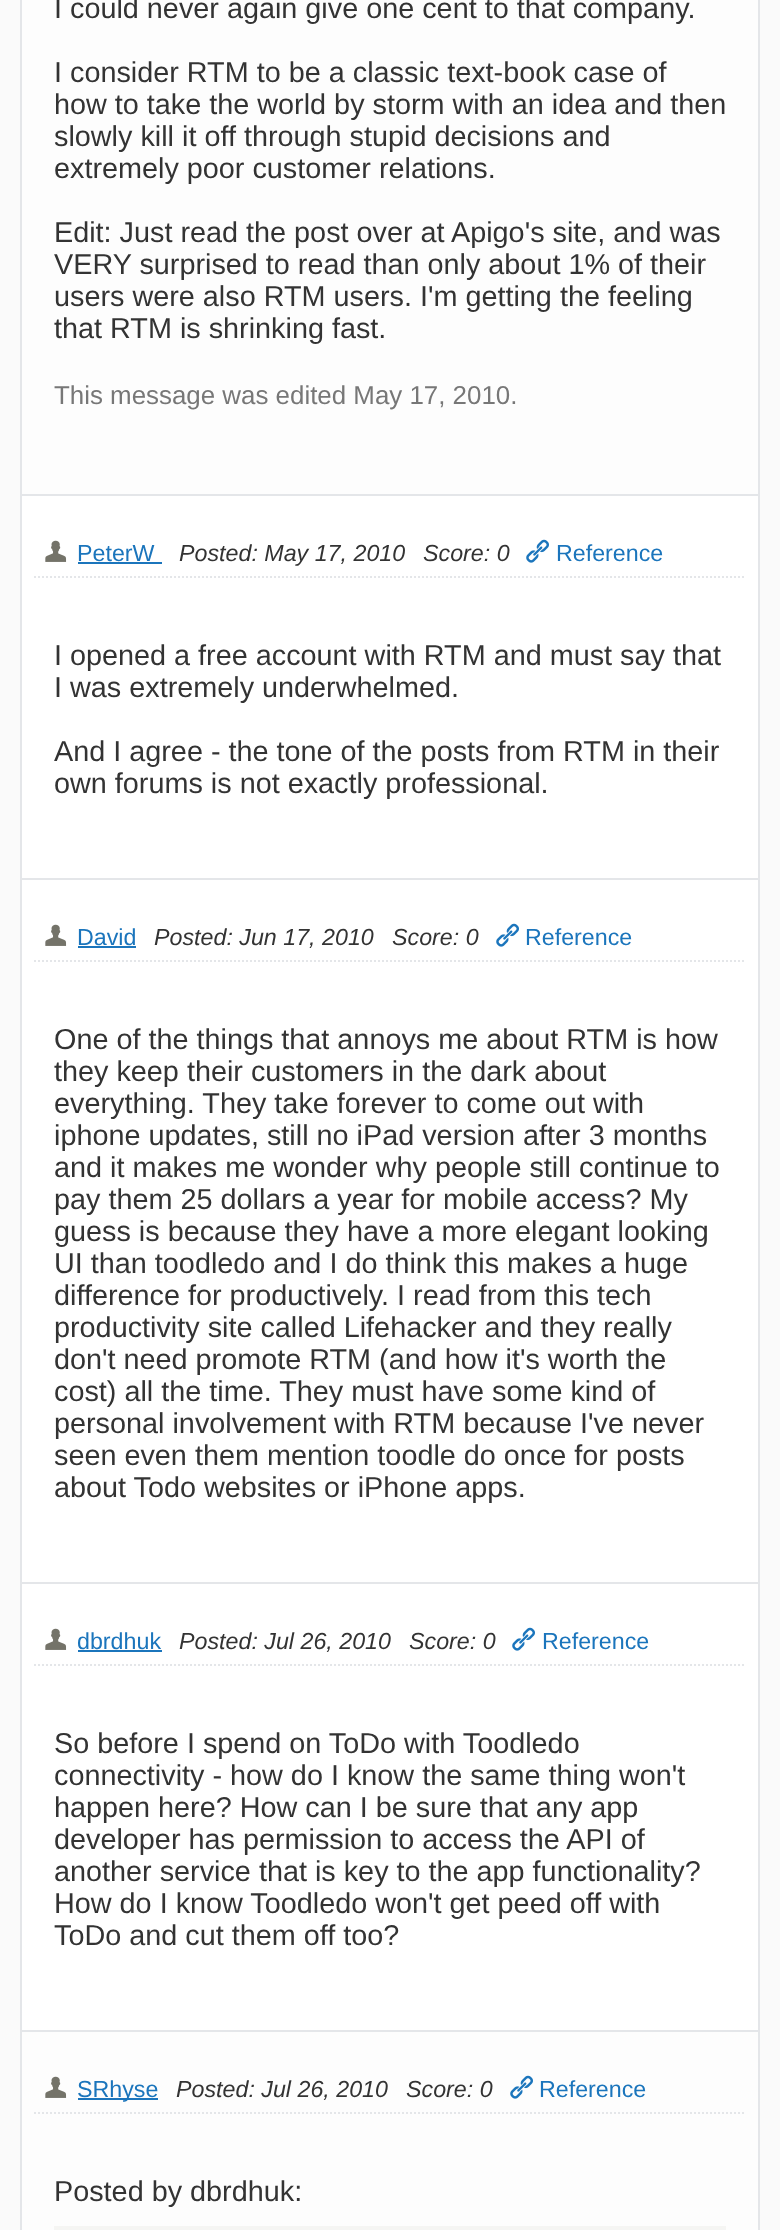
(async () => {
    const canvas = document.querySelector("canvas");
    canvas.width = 780;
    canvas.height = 2230;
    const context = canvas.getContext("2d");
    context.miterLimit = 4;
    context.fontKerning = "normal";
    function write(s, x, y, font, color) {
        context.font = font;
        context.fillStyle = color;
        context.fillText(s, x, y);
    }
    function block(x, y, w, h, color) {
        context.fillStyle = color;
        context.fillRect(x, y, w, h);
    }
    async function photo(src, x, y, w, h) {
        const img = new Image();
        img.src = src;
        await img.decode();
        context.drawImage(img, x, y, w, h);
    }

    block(0, 0, 780, 2230, "rgb(250, 250, 250)");
    block(22, 496, 736, 1534, "rgb(255, 255, 255)");
    context.strokeStyle = "rgb(228, 230, 233)";
    context.lineWidth = 2;
    context.strokeRect(21, -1, 738, 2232);
    block(22, 0, 736, 494, "rgb(253, 253, 253)");
    block(20, 494, 738, 2, "rgb(228, 230, 233)");
    write("I could never again give one cent to that company.", 54, 18, "28.8px Liberation Sans", "rgb(51, 51, 51)");
    write("I consider RTM to be a classic text-book case of", 54, 82, "28.8px Liberation Sans", "rgb(51, 51, 51)");
    write("how to take the world by storm with an idea and then", 54, 114, "28.8px Liberation Sans", "rgb(51, 51, 51)");
    write("slowly kill it off through stupid decisions and", 54, 146, "28.8px Liberation Sans", "rgb(51, 51, 51)");
    write("extremely poor customer relations.", 54, 178, "28.8px Liberation Sans", "rgb(51, 51, 51)");
    write("Edit: Just read the post over at Apigo's site, and was", 54, 242, "28.8px Liberation Sans", "rgb(51, 51, 51)");
    write("VERY surprised to read than only about 1% of their", 54, 274, "28.8px Liberation Sans", "rgb(51, 51, 51)");
    write("users were also RTM users. I'm getting the feeling", 54, 306, "28.8px Liberation Sans", "rgb(51, 51, 51)");
    write("that RTM is shrinking fast.", 54, 338, "28.8px Liberation Sans", "rgb(51, 51, 51)");
    write("This message was edited May 17, 2010.", 54, 404, "25.9px Liberation Sans", "rgb(119, 119, 119)");
    block(20, 878, 738, 2, "rgb(228, 230, 233)");
    context.beginPath();
    context.moveTo(34, 577);
    context.lineTo(746, 577);
    context.setLineDash([2, 2]);
    context.stroke();
    await photo("media/1.png", 45, 540, 22, 22);
    write("PeterW", 77, 561, "23.25px Liberation Sans", "rgb(27, 117, 188)");
    block(78, 562, 84, 2, "rgb(27, 117, 188)");
    write("Posted: May 17, 2010", 179, 561, "italic 23.25px Liberation Sans", "rgb(51, 51, 51)");
    write("Score: 0", 423, 561, "italic 23.25px Liberation Sans", "rgb(51, 51, 51)");
    await photo("media/2.png", 526, 539, 23, 24);
    write("Reference", 556, 561, "23.25px Liberation Sans", "rgb(27, 117, 188)");
    write("I opened a free account with RTM and must say that", 54, 665, "28.8px Liberation Sans", "rgb(51, 51, 51)");
    write("I was extremely underwhelmed.", 54, 697, "28.8px Liberation Sans", "rgb(51, 51, 51)");
    write("And I agree - the tone of the posts from RTM in their", 54, 761, "28.8px Liberation Sans", "rgb(51, 51, 51)");
    write("own forums is not exactly professional.", 54, 793, "28.8px Liberation Sans", "rgb(51, 51, 51)");
    block(20, 1582, 738, 2, "rgb(228, 230, 233)");
    context.beginPath();
    context.moveTo(34, 961);
    context.lineTo(746, 961);
    context.stroke();
    await photo("media/3.png", 45, 924, 22, 22);
    write("David", 77, 945, "23.25px Liberation Sans", "rgb(27, 117, 188)");
    block(78, 946, 58, 2, "rgb(27, 117, 188)");
    write("Posted: Jun 17, 2010", 154, 945, "italic 23.25px Liberation Sans", "rgb(51, 51, 51)");
    write("Score: 0", 392, 945, "italic 23.25px Liberation Sans", "rgb(51, 51, 51)");
    await photo("media/4.png", 496, 923, 23, 24);
    write("Reference", 525, 945, "23.25px Liberation Sans", "rgb(27, 117, 188)");
    write("One of the things that annoys me about RTM is how", 54, 1049, "28.8px Liberation Sans", "rgb(51, 51, 51)");
    write("they keep their customers in the dark about", 54, 1081, "28.8px Liberation Sans", "rgb(51, 51, 51)");
    write("everything. They take forever to come out with", 54, 1113, "28.8px Liberation Sans", "rgb(51, 51, 51)");
    write("iphone updates, still no iPad version after 3 months", 54, 1145, "28.8px Liberation Sans", "rgb(51, 51, 51)");
    write("and it makes me wonder why people still continue to", 54, 1177, "28.8px Liberation Sans", "rgb(51, 51, 51)");
    write("pay them 25 dollars a year for mobile access? My", 54, 1209, "28.8px Liberation Sans", "rgb(51, 51, 51)");
    write("guess is because they have a more elegant looking", 54, 1241, "28.8px Liberation Sans", "rgb(51, 51, 51)");
    write("UI than toodledo and I do think this makes a huge", 54, 1273, "28.8px Liberation Sans", "rgb(51, 51, 51)");
    write("difference for productively. I read from this tech", 54, 1305, "28.8px Liberation Sans", "rgb(51, 51, 51)");
    write("productivity site called Lifehacker and they really", 54, 1337, "28.8px Liberation Sans", "rgb(51, 51, 51)");
    write("don't need promote RTM (and how it's worth the", 54, 1369, "28.8px Liberation Sans", "rgb(51, 51, 51)");
    write("cost) all the time. They must have some kind of", 54, 1401, "28.8px Liberation Sans", "rgb(51, 51, 51)");
    write("personal involvement with RTM because I've never", 54, 1433, "28.8px Liberation Sans", "rgb(51, 51, 51)");
    write("seen even them mention toodle do once for posts", 54, 1465, "28.8px Liberation Sans", "rgb(51, 51, 51)");
    write("about Todo websites or iPhone apps.", 54, 1497, "28.8px Liberation Sans", "rgb(51, 51, 51)");
    block(20, 2030, 738, 2, "rgb(228, 230, 233)");
    context.beginPath();
    context.moveTo(34, 1665);
    context.lineTo(746, 1665);
    context.stroke();
    await photo("media/1.png", 45, 1628, 22, 22);
    write("dbrdhuk", 77, 1649, "23.25px Liberation Sans", "rgb(27, 117, 188)");
    block(78, 1650, 84, 2, "rgb(27, 117, 188)");
    write("Posted: Jul 26, 2010", 179, 1649, "italic 23.25px Liberation Sans", "rgb(51, 51, 51)");
    write("Score: 0", 409, 1649, "italic 23.25px Liberation Sans", "rgb(51, 51, 51)");
    await photo("media/2.png", 512, 1627, 23, 24);
    write("Reference", 542, 1649, "23.25px Liberation Sans", "rgb(27, 117, 188)");
    write("So before I spend on ToDo with Toodledo", 54, 1753, "28.8px Liberation Sans", "rgb(51, 51, 51)");
    write("connectivity - how do I know the same thing won't", 54, 1785, "28.8px Liberation Sans", "rgb(51, 51, 51)");
    write("happen here? How can I be sure that any app", 54, 1817, "28.8px Liberation Sans", "rgb(51, 51, 51)");
    write("developer has permission to access the API of", 54, 1849, "28.8px Liberation Sans", "rgb(51, 51, 51)");
    write("another service that is key to the app functionality?", 54, 1881, "28.8px Liberation Sans", "rgb(51, 51, 51)");
    write("How do I know Toodledo won't get peed off with", 54, 1913, "28.8px Liberation Sans", "rgb(51, 51, 51)");
    write("ToDo and cut them off too?", 54, 1945, "28.8px Liberation Sans", "rgb(51, 51, 51)");
    block(22, 2032, 736, 198, "rgb(253, 253, 253)");
    context.beginPath();
    context.moveTo(34, 2113);
    context.lineTo(746, 2113);
    context.stroke();
    await photo("media/3.png", 45, 2076, 22, 22);
    block(78, 2098, 80, 2, "rgb(27, 117, 188)");
    write("SRhyse", 77, 2097, "23.25px Liberation Sans", "rgb(27, 117, 188)");
    write("Posted: Jul 26, 2010", 176, 2097, "italic 23.25px Liberation Sans", "rgb(51, 51, 51)");
    write("Score: 0", 406, 2097, "italic 23.25px Liberation Sans", "rgb(51, 51, 51)");
    await photo("media/4.png", 510, 2075, 23, 24);
    write("Reference", 539, 2097, "23.25px Liberation Sans", "rgb(27, 117, 188)");
    write("Posted by dbrdhuk:", 54, 2201, "28.8px Liberation Sans", "rgb(51, 51, 51)");
    block(54, 2226, 672, 4, "rgb(245, 245, 243)");
})();
